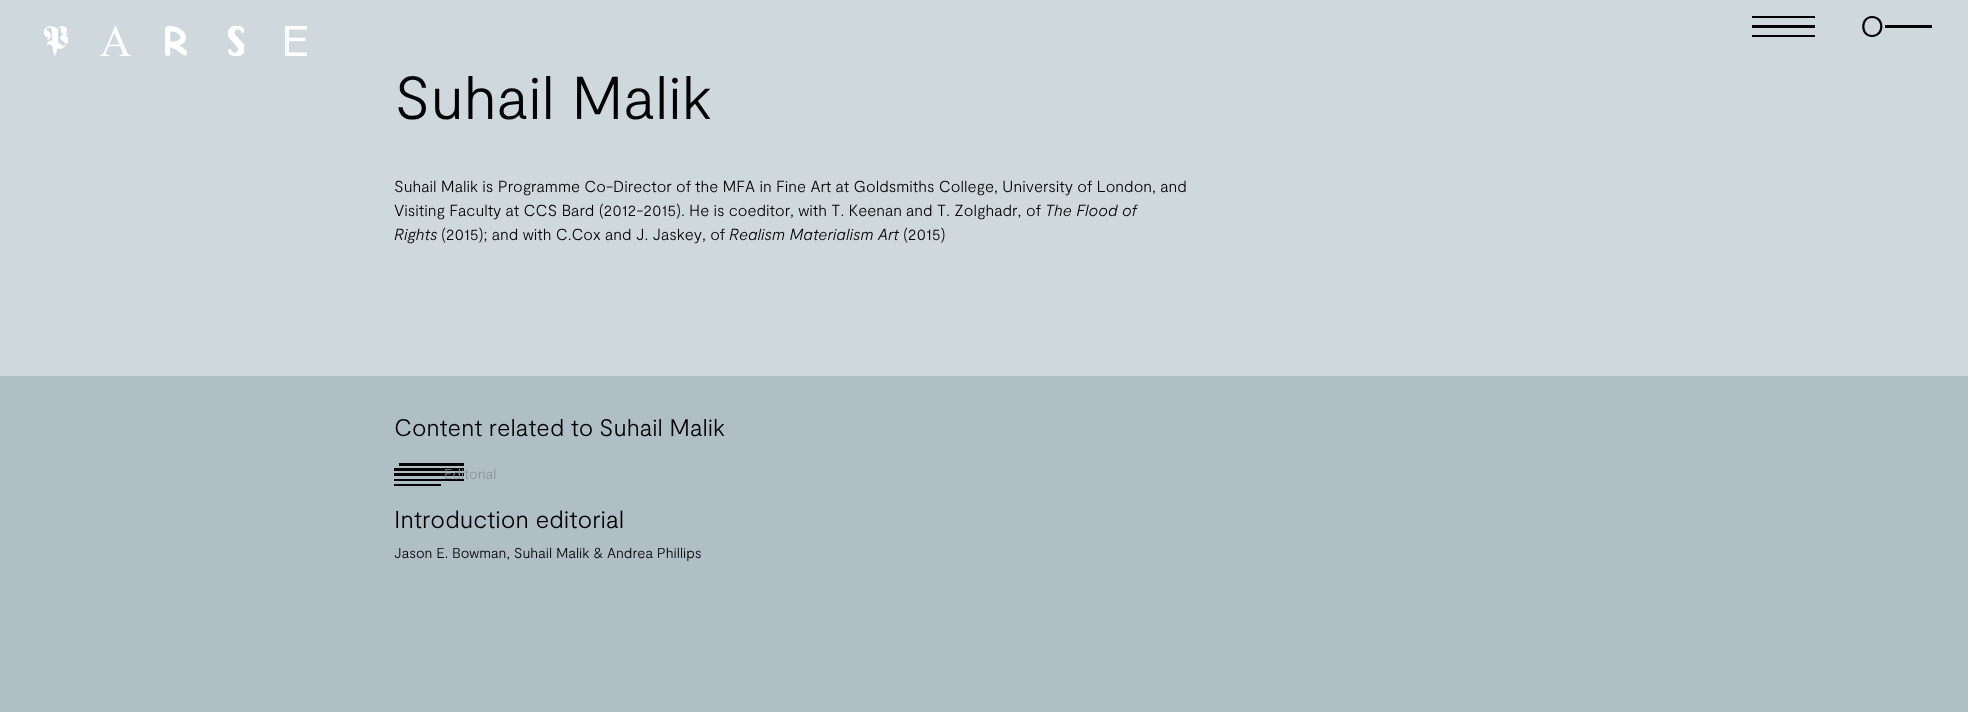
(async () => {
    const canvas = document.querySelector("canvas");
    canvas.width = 1968;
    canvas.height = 712;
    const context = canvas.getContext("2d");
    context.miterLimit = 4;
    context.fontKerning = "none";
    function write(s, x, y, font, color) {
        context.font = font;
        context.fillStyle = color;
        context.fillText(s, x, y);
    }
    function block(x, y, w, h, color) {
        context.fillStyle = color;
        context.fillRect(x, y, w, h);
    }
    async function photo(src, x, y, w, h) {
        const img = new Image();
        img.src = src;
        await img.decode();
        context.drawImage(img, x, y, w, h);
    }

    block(0, 0, 1968, 712, "rgb(207, 216, 220)");
    await photo("media/1.png", 44, 26, 24, 30);
    await photo("media/2.png", 100, 26, 32, 30);
    await photo("media/3.png", 165, 26, 22, 30);
    await photo("media/4.png", 228, 26, 16, 30);
    await photo("media/5.png", 285, 26, 22, 30);
    context.fillStyle = "rgb(0, 0, 0)";
    context.beginPath();
    context.moveTo(1752, 16);
    context.lineTo(1815, 16);
    context.lineTo(1815, 18);
    context.lineTo(1752, 18);
    context.closePath();
    context.moveTo(1752, 25);
    context.lineTo(1815, 25);
    context.lineTo(1815, 28);
    context.lineTo(1752, 28);
    context.closePath();
    context.moveTo(1752, 35);
    context.lineTo(1815, 35);
    context.lineTo(1815, 37);
    context.lineTo(1752, 37);
    context.closePath();
    context.fill();
    context.beginPath();
    context.moveTo(1885, 25);
    context.lineTo(1932, 25);
    context.lineTo(1932, 28);
    context.lineTo(1885, 28);
    context.closePath();
    context.moveTo(1872, 16);
    context.bezierCurveTo(1859, 16, 1859, 37, 1872, 37);
    context.bezierCurveTo(1886, 37, 1886, 16, 1872, 16);
    context.closePath();
    context.moveTo(1872, 35);
    context.bezierCurveTo(1862, 35, 1862, 18, 1872, 18);
    context.bezierCurveTo(1883, 18, 1883, 35, 1872, 35);
    context.closePath();
    context.fill();
    write("Suhail Malik", 394, 119, "300 60.5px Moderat", "rgb(0, 0, 0)");
    write("Suhail Malik is Programme Co-Director of", 394, 192, "300 16px Moderat", "rgb(0, 0, 0)");
    write("the MFA in Fine Art at Goldsmiths College,", 695, 192, "300 16px Moderat", "rgb(0, 0, 0)");
    write("University of London, and", 1002, 192, "300 16px Moderat", "rgb(0, 0, 0)");
    write("Visiting Faculty at CCS Bard (2012-2015).", 394, 216, "300 16px Moderat", "rgb(0, 0, 0)");
    write("He is coeditor, with T. Keenan", 689, 216, "300 16px Moderat", "rgb(0, 0, 0)");
    write("and T. Zolghadr,", 906, 216, "300 16px Moderat", "rgb(0, 0, 0)");
    write("of", 1026, 216, "300 16px Moderat", "rgb(0, 0, 0)");
    write("The Flood of", 1045, 216, "300 16px 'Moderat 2'", "rgb(0, 0, 0)");
    write("Rights", 394, 240, "300 16px 'Moderat 2'", "rgb(0, 0, 0)");
    write("(2015); and with C.Cox", 441, 240, "300 16px Moderat", "rgb(0, 0, 0)");
    write("and J. Jaskey, of", 605, 240, "300 16px Moderat", "rgb(0, 0, 0)");
    write("Realism Materialism Art", 729, 240, "300 16px 'Moderat 2'", "rgb(0, 0, 0)");
    write("(2015)", 903, 240, "300 16px Moderat", "rgb(0, 0, 0)");
    block(0, 376, 1968, 336, "rgb(176, 190, 197)");
    write("Content related to", 394, 436, "300 24px Moderat", "rgb(0, 0, 0)");
    write("Suhail Malik", 599, 436, "300 24px Moderat", "rgb(0, 0, 0)");
    context.beginPath();
    context.moveTo(399, 463);
    context.lineTo(464, 463);
    context.lineTo(464, 466);
    context.lineTo(399, 466);
    context.closePath();
    context.moveTo(394, 479);
    context.lineTo(464, 479);
    context.lineTo(464, 481);
    context.lineTo(394, 481);
    context.closePath();
    context.moveTo(394, 473);
    context.lineTo(464, 473);
    context.lineTo(464, 476);
    context.lineTo(394, 476);
    context.closePath();
    context.moveTo(394, 468);
    context.lineTo(464, 468);
    context.lineTo(464, 471);
    context.lineTo(394, 471);
    context.closePath();
    context.moveTo(394, 484);
    context.lineTo(441, 484);
    context.lineTo(441, 486);
    context.lineTo(394, 486);
    context.closePath();
    context.fill();
    write("Editorial", 444, 479, "300 14.4px Moderat", "rgb(138, 149, 154)");
    write("Introduction editorial", 394, 528, "300 24.5px Moderat", "rgb(0, 0, 0)");
    write("Jason E. Bowman, Suhail Malik & Andrea Phillips", 394, 558, "300 14.4px Moderat", "rgb(0, 0, 0)");
})();
